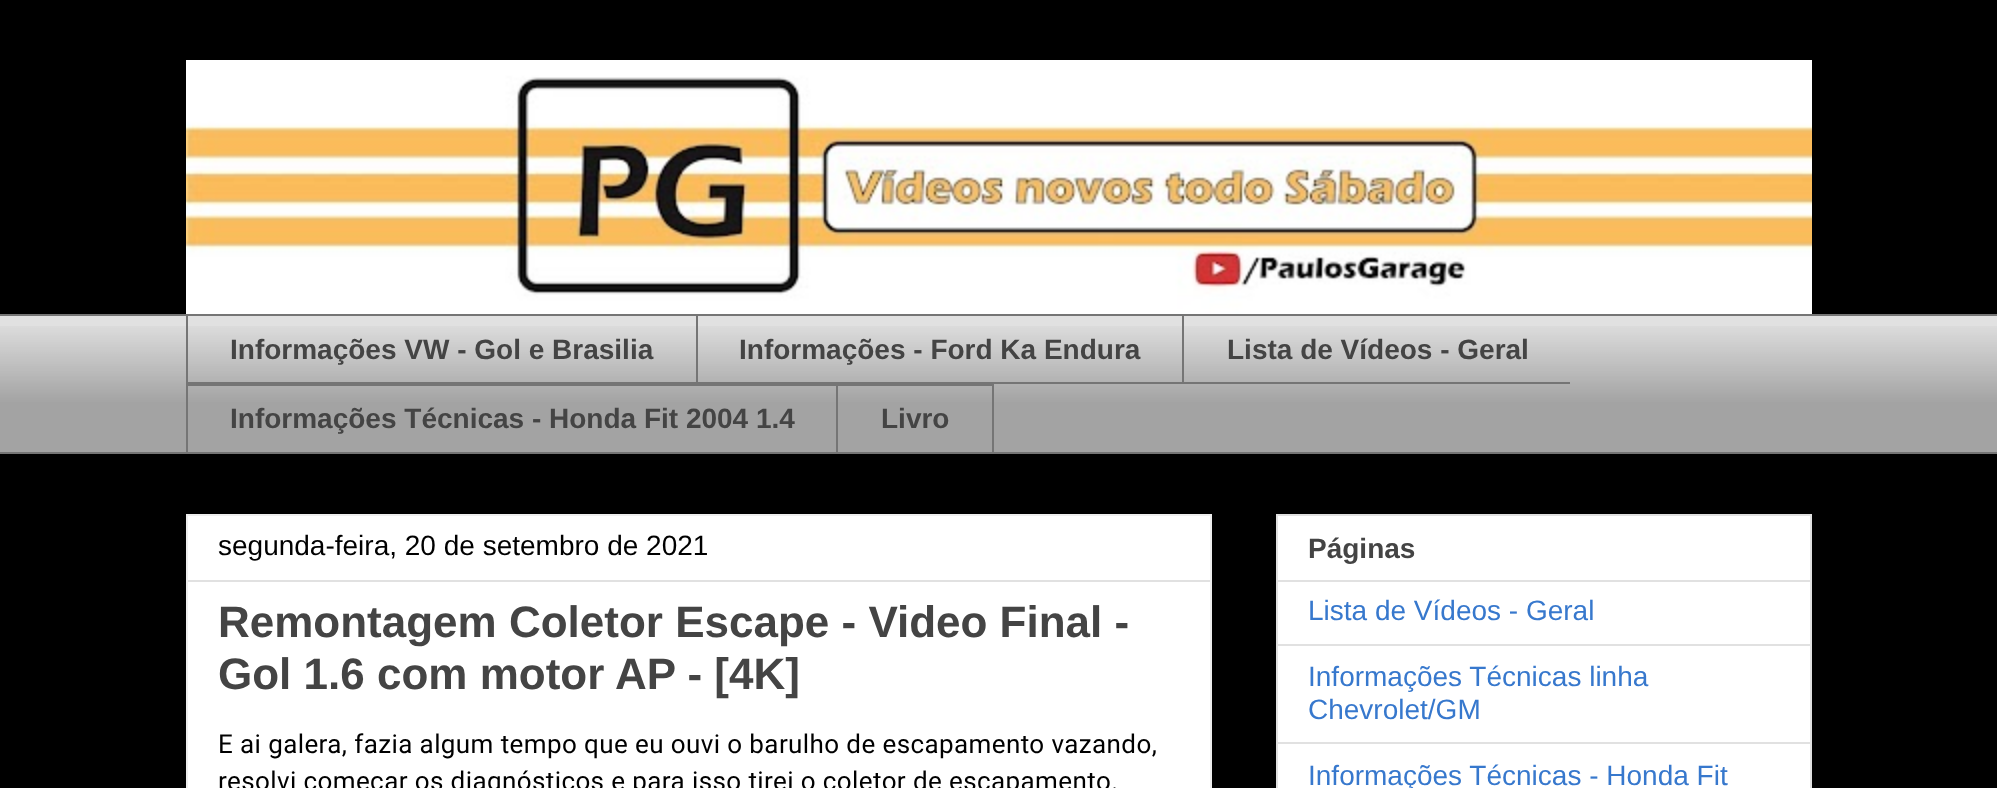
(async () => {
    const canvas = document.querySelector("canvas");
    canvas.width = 1997;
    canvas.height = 788;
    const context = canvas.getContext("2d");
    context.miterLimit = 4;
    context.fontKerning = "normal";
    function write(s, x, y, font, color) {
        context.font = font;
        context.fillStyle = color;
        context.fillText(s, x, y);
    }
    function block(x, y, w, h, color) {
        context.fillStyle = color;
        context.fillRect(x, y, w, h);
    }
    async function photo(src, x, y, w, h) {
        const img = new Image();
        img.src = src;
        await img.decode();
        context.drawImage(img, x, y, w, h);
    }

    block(0, 0, 1997, 788, "rgb(0, 0, 0)");
    await photo("media/1.png", 186, 60, 1626, 254);
    block(0, 316, 1997, 136, "rgb(225, 225, 225)");
    await photo("media/2.png", 0, 326, 1997, 126);
    block(0, 314, 1997, 2, "rgb(117, 117, 117)");
    block(186, 382, 1384, 2, "rgb(117, 117, 117)");
    block(186, 314, 2, 70, "rgb(117, 117, 117)");
    write("Informações VW - Gol e Brasilia", 230, 359, "bold 28px Liberation Sans", "rgb(68, 68, 68)");
    block(696, 314, 2, 70, "rgb(117, 117, 117)");
    write("Informações - Ford Ka Endura", 739, 359, "bold 28px Liberation Sans", "rgb(68, 68, 68)");
    block(1182, 314, 2, 70, "rgb(117, 117, 117)");
    write("Lista de Vídeos - Geral", 1227, 359, "bold 28px Liberation Sans", "rgb(68, 68, 68)");
    block(186, 384, 650, 2, "rgb(117, 117, 117)");
    block(186, 384, 2, 70, "rgb(117, 117, 117)");
    write("Informações Técnicas - Honda Fit 2004 1.4", 230, 428, "bold 28px Liberation Sans", "rgb(68, 68, 68)");
    context.strokeStyle = "rgb(117, 117, 117)";
    context.lineWidth = 2;
    context.strokeRect(837, 385, 156, 68);
    write("Livro", 881, 428, "bold 28px Liberation Sans", "rgb(68, 68, 68)");
    block(0, 452, 1997, 2, "rgb(117, 117, 117)");
    context.fillStyle = "rgb(255, 255, 255)";
    context.beginPath();
    context.rect(187, 515, 1024, 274);
    context.fill();
    context.strokeStyle = "rgb(238, 238, 238)";
    context.stroke();
    write("segunda-feira, 20 de setembro de 2021", 218, 555, "28px Liberation Sans", "rgb(0, 0, 0)");
    block(188, 580, 1022, 2, "rgb(225, 225, 225)");
    write("Remontagem Coletor Escape - Video Final -", 218, 637, "bold 44px Liberation Sans", "rgb(68, 68, 68)");
    write("Gol 1.6 com motor AP - [4K]", 218, 689, "bold 44px Liberation Sans", "rgb(68, 68, 68)");
    context.letterSpacing = "0.4px";
    write("E ai galera, fazia algum tempo que eu ouvi o barulho de escapamento vazando,", 218, 753, "26px Roboto", "rgb(0, 0, 0)");
    write("resolvi começar os diagnósticos e para isso tirei o coletor de escapamento.", 218, 790, "26px Roboto", "rgb(0, 0, 0)");
    context.fillStyle = "rgb(255, 255, 255)";
    context.beginPath();
    context.rect(1277, 515, 534, 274);
    context.fill();
    context.strokeStyle = "rgb(225, 225, 225)";
    context.stroke();
    context.letterSpacing = "0px";
    write("Páginas", 1308, 558, "bold 28px Liberation Sans", "rgb(68, 68, 68)");
    block(1278, 580, 532, 2, "rgb(225, 225, 225)");
    write("Lista de Vídeos - Geral", 1308, 620, "28px Liberation Sans", "rgb(55, 120, 205)");
    block(1278, 644, 532, 2, "rgb(225, 225, 225)");
    write("Informações Técnicas linha", 1308, 686, "28px Liberation Sans", "rgb(55, 120, 205)");
    write("Chevrolet/GM", 1308, 719, "28px Liberation Sans", "rgb(55, 120, 205)");
    block(1278, 742, 532, 2, "rgb(225, 225, 225)");
    write("Informações Técnicas - Honda Fit", 1308, 785, "28px Liberation Sans", "rgb(55, 120, 205)");
})();
